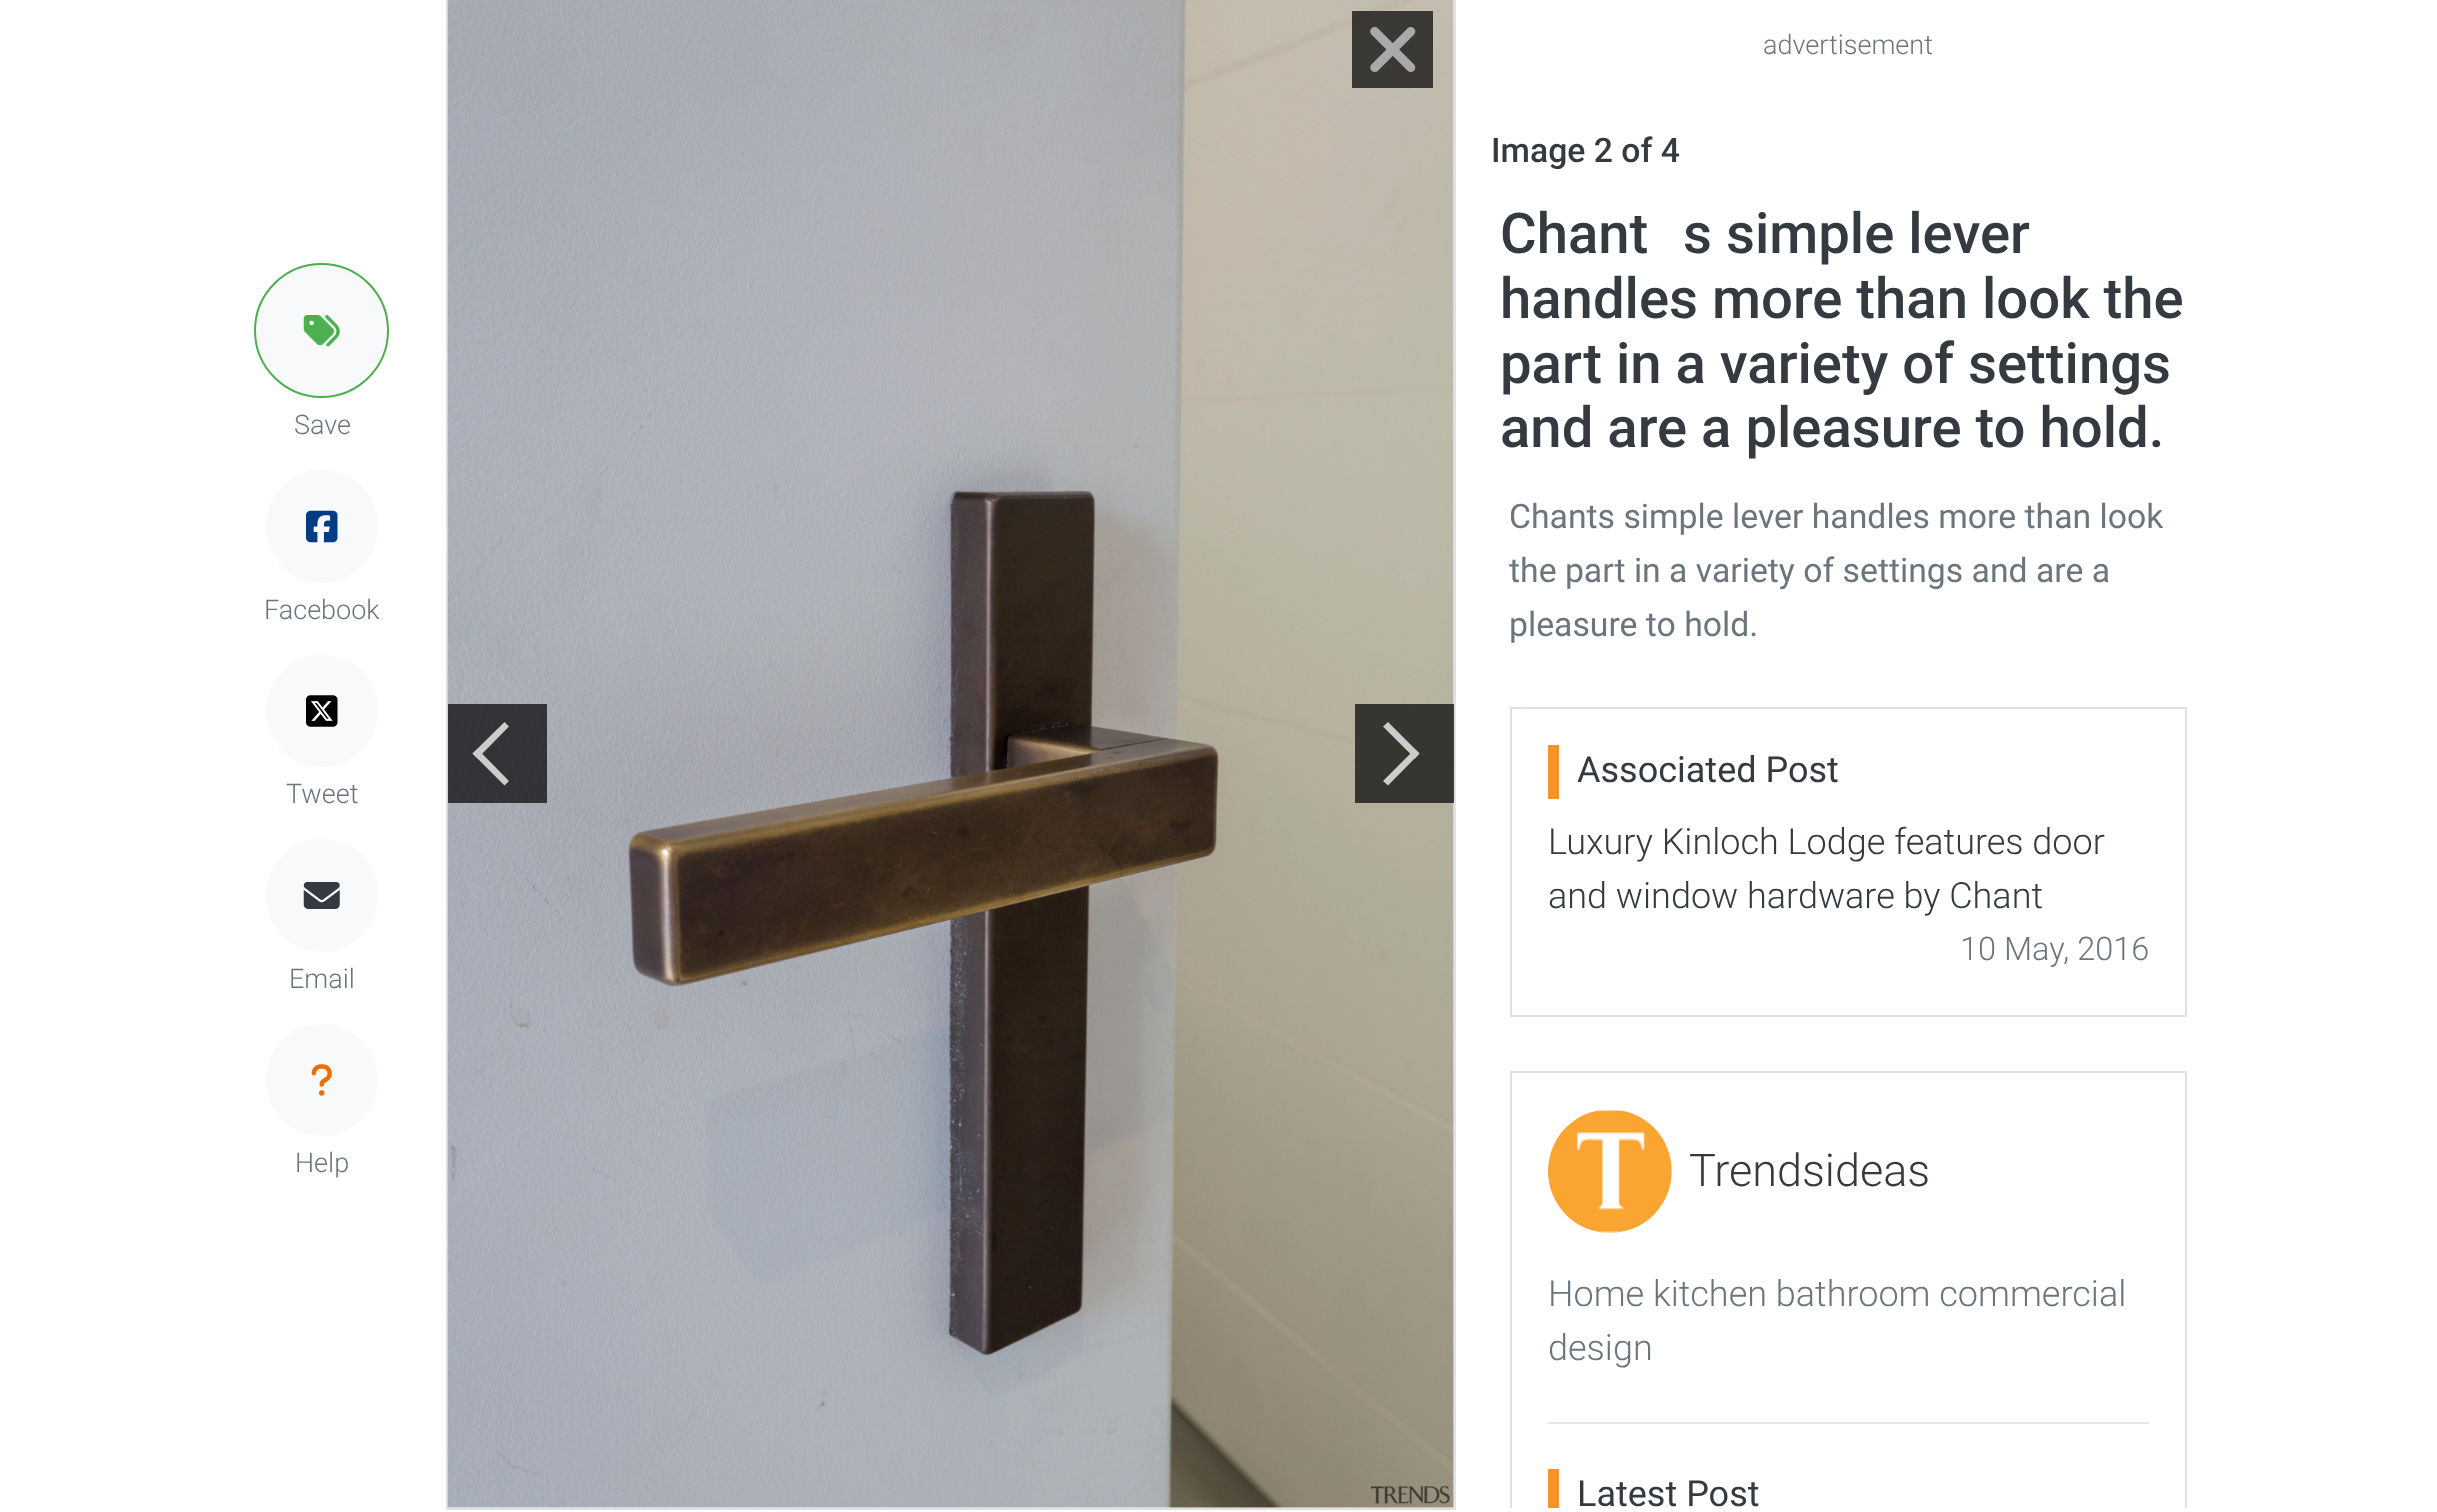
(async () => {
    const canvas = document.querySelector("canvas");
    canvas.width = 2437;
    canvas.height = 1512;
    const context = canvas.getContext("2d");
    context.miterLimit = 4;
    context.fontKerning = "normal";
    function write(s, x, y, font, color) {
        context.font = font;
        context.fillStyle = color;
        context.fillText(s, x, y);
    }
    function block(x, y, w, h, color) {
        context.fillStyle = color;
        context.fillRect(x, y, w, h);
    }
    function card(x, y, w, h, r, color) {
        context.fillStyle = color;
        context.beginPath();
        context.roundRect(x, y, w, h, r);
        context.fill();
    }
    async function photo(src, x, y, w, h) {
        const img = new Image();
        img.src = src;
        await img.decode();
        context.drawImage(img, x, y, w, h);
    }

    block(0, 0, 2437, 1512, "rgb(255, 255, 255)");
    context.fillStyle = "rgb(248, 249, 250)";
    context.beginPath();
    context.arc(321.5, 330.5, 66.5, 0, Math.PI * 2);
    context.fill();
    context.strokeStyle = "rgb(76, 175, 80)";
    context.lineWidth = 2;
    context.stroke();
    await photo("media/1.png", 303, 315, 37, 32);
    write("Save", 294, 434, "300 27px Roboto", "rgb(108, 117, 125)");
    card(266, 470, 112, 113, 56, "rgb(248, 249, 250)");
    await photo("media/2.png", 306, 510, 32, 33);
    write("Facebook", 264, 619, "300 27px Roboto", "rgb(108, 117, 125)");
    context.fillStyle = "rgb(248, 249, 250)";
    context.beginPath();
    context.arc(322, 711, 56, 0, Math.PI * 2);
    context.fill();
    await photo("media/3.png", 306, 695, 32, 32);
    write("Tweet", 286, 803, "300 27px Roboto", "rgb(108, 117, 125)");
    card(266, 839, 112, 113, 56, "rgb(248, 249, 250)");
    await photo("media/4.png", 303, 882, 37, 27);
    write("Email", 289, 988, "300 27px Roboto", "rgb(108, 117, 125)");
    context.fillStyle = "rgb(248, 249, 250)";
    context.beginPath();
    context.arc(322, 1080, 56, 0, Math.PI * 2);
    context.fill();
    await photo("media/5.png", 311, 1064, 21, 32);
    write("Help", 295, 1172, "300 27px Roboto", "rgb(108, 117, 125)");
    context.strokeStyle = "rgb(222, 226, 230)";
    context.strokeRect(447, -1, 1008, 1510);
    await photo("media/6.png", 447, 0, 1007, 1508);
    block(1352, 11, 81, 77, "rgba(0, 0, 0, 0.7)");
    await photo("media/7.png", 1370, 27, 46, 45);
    block(448, 704, 99, 99, "rgba(0, 0, 0, 0.7)");
    context.fillStyle = "rgb(204, 204, 204)";
    context.beginPath();
    context.moveTo(472.5, 753.5);
    context.lineTo(504.5, 722);
    context.lineTo(509, 726.5);
    context.lineTo(477.5, 758.5);
    context.closePath();
    context.fill();
    context.beginPath();
    context.moveTo(472.5, 753.5);
    context.lineTo(477.5, 749);
    context.lineTo(509, 781);
    context.lineTo(504.5, 785.5);
    context.closePath();
    context.fill();
    block(1355, 704, 99, 99, "rgba(0, 0, 0, 0.7)");
    context.fillStyle = "rgb(204, 204, 204)";
    context.beginPath();
    context.moveTo(1388, 722);
    context.lineTo(1419.5, 753.5);
    context.lineTo(1415, 758.5);
    context.lineTo(1383, 726.5);
    context.closePath();
    context.fill();
    context.beginPath();
    context.moveTo(1415, 749);
    context.lineTo(1419.5, 753.5);
    context.lineTo(1388, 785.5);
    context.lineTo(1383, 781);
    context.closePath();
    context.fill();
    write("advertisement", 1763, 54, "300 27px Roboto", "rgb(108, 117, 125)");
    write("Image 2 of 4", 1491, 162, "500 33.75px Roboto", "rgb(52, 58, 64)");
    write("Chant", 1500, 253, "500 56.25px Roboto", "rgb(52, 58, 64)");
    write("s simple lever", 1683, 253, "500 56.25px Roboto", "rgb(52, 58, 64)");
    write("handles more than look the", 1500, 318, "500 56.25px Roboto", "rgb(52, 58, 64)");
    write("part in a variety of settings", 1500, 383, "500 56.25px Roboto", "rgb(52, 58, 64)");
    write("and are a pleasure to hold.", 1500, 447, "500 56.25px Roboto", "rgb(52, 58, 64)");
    write("Chants simple lever handles more than look", 1509, 528, "33.75px Roboto", "rgb(108, 117, 125)");
    write("the part in a variety of settings and are a", 1509, 582, "33.75px Roboto", "rgb(108, 117, 125)");
    write("pleasure to hold.", 1509, 636, "33.75px Roboto", "rgb(108, 117, 125)");
    context.strokeRect(1511, 708, 675, 308);
    block(1548, 745, 11, 54, "rgb(246, 147, 39)");
    write("Associated Post", 1577, 782, "36px Roboto", "rgb(52, 58, 64)");
    write("Luxury Kinloch Lodge features door", 1548, 854, "300 36px Roboto", "rgb(52, 58, 64)");
    write("and window hardware by Chant", 1548, 908, "300 36px Roboto", "rgb(52, 58, 64)");
    write("10 May, 2016", 1960, 960, "300 32.5px Roboto", "rgb(108, 117, 125)");
    context.save();
    context.beginPath();
    context.rect(1458, 0, 781, 1508);
    context.clip();
    context.strokeRect(1511, 1072, 675, 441);
    context.restore();
    await photo("media/8.png", 1548, 1109, 124, 124);
    write("Trendsideas", 1689, 1186, "300 45px Roboto", "rgb(52, 58, 64)");
    write("Home kitchen bathroom commercial", 1548, 1306, "300 36px Roboto", "rgb(108, 117, 125)");
    write("design", 1548, 1360, "300 36px Roboto", "rgb(108, 117, 125)");
    block(1548, 1422, 601, 2, "rgb(230, 230, 230)");
    block(1548, 1469, 11, 39, "rgb(246, 147, 39)");
    write("Latest Post", 1577, 1506, "36px Roboto", "rgb(52, 58, 64)");
})();
